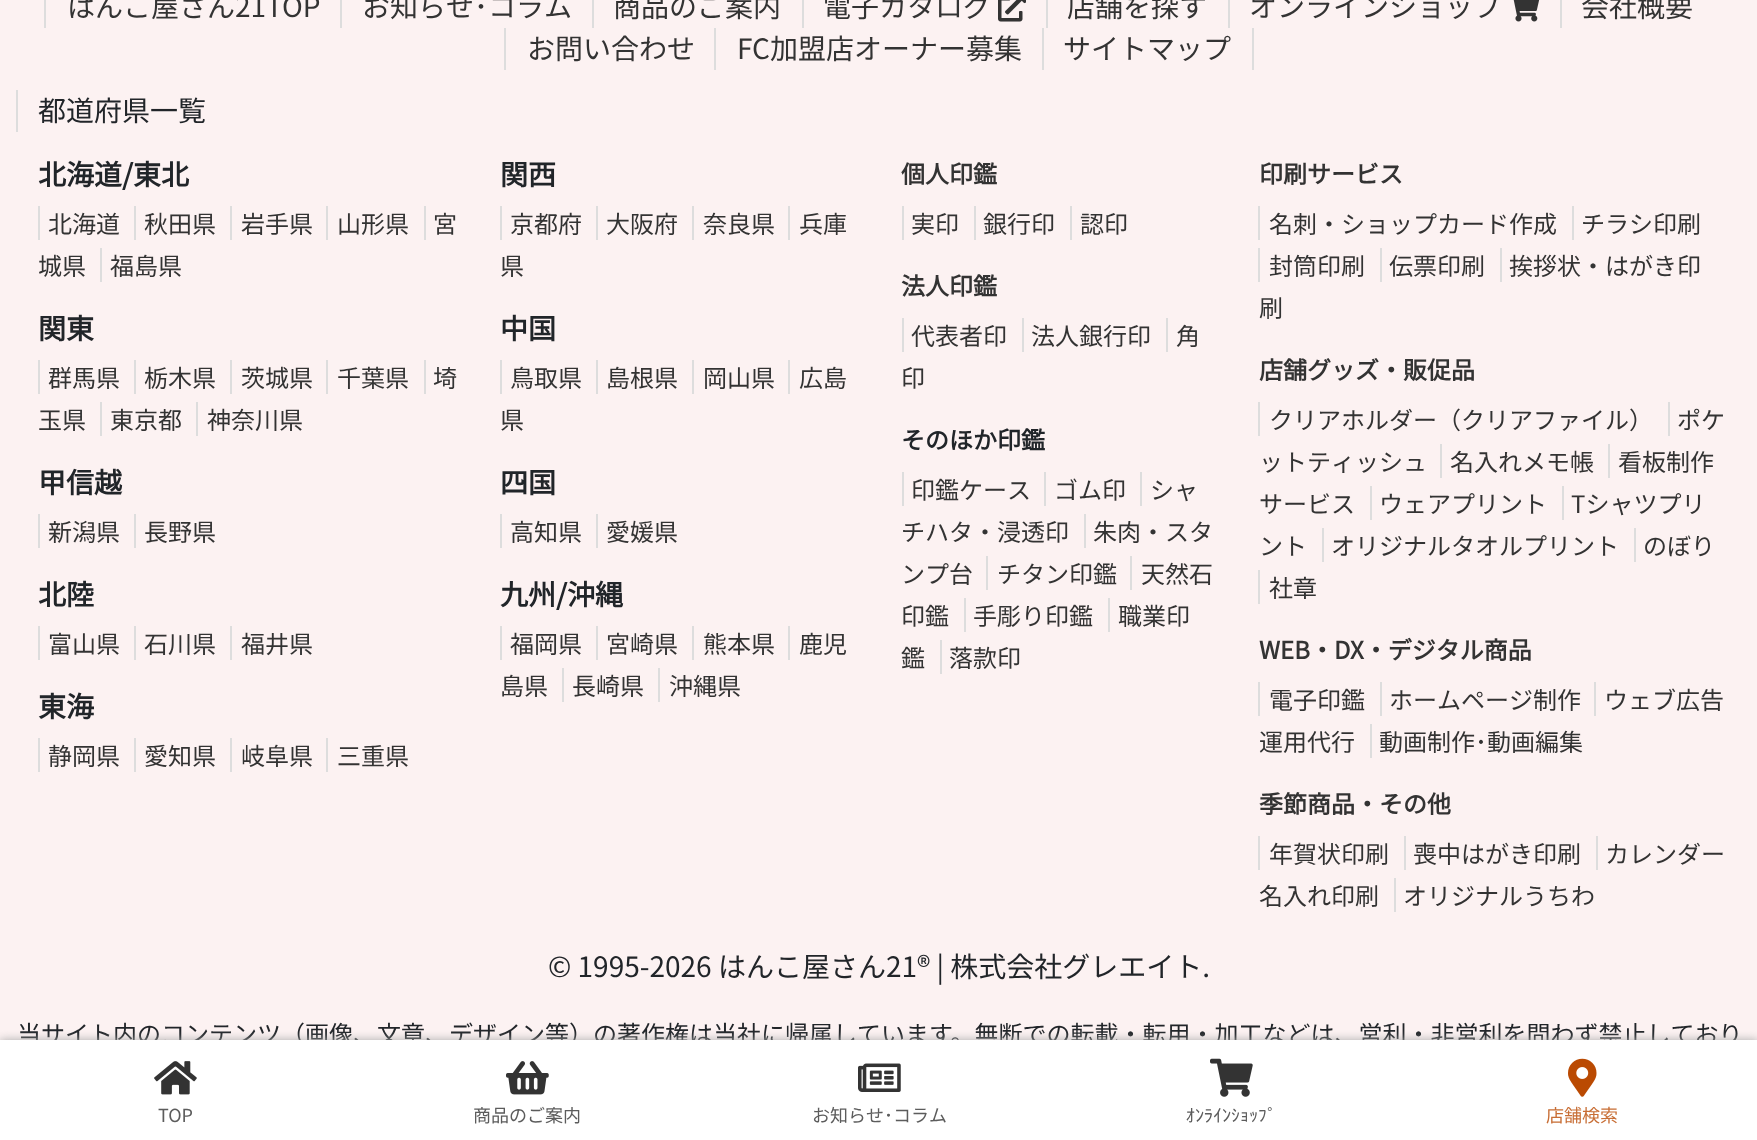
(async () => {
    const canvas = document.querySelector("canvas");
    canvas.width = 1757;
    canvas.height = 1140;
    const context = canvas.getContext("2d");
    context.miterLimit = 4;
    context.fontKerning = "normal";
    function write(s, x, y, font, color) {
        context.font = font;
        context.fillStyle = color;
        context.fillText(s, x, y);
    }
    function block(x, y, w, h, color) {
        context.fillStyle = color;
        context.fillRect(x, y, w, h);
    }
    async function photo(src, x, y, w, h) {
        const img = new Image();
        img.src = src;
        await img.decode();
        context.drawImage(img, x, y, w, h);
    }

    block(0, 0, 1757, 1140, "rgb(252, 242, 242)");
    block(44, 0, 2, 28, "rgb(221, 221, 221)");
    write("はんこ屋さん21TOP", 67, 17, "100 28px Noto Sans JP", "rgb(51, 51, 51)");
    block(340, 0, 2, 28, "rgb(221, 221, 221)");
    write("お知らせ･コラム", 362, 17, "100 28px Noto Sans JP", "rgb(51, 51, 51)");
    block(592, 0, 2, 28, "rgb(221, 221, 221)");
    write("商品のご案内", 613, 17, "100 28px Noto Sans JP", "rgb(51, 51, 51)");
    block(802, 0, 2, 28, "rgb(221, 221, 221)");
    write("電子カタログ", 823, 17, "100 28px Noto Sans JP", "rgb(51, 51, 51)");
    await photo("media/1.png", 998, 0, 28, 22);
    block(1046, 0, 2, 28, "rgb(221, 221, 221)");
    write("店舗を探す", 1067, 17, "100 28px Noto Sans JP", "rgb(51, 51, 51)");
    block(1228, 0, 2, 28, "rgb(221, 221, 221)");
    write("オンラインショップ", 1249, 17, "100 28px Noto Sans JP", "rgb(51, 51, 51)");
    await photo("media/2.png", 1513, 0, 27, 22);
    block(1560, 0, 2, 28, "rgb(221, 221, 221)");
    write("会社概要", 1581, 17, "100 28px Noto Sans JP", "rgb(51, 51, 51)");
    block(504, 28, 2, 42, "rgb(221, 221, 221)");
    write("お問い合わせ", 527, 59, "100 28px Noto Sans JP", "rgb(51, 51, 51)");
    block(714, 28, 2, 42, "rgb(221, 221, 221)");
    write("FC加盟店オーナー募集", 737, 59, "100 28px Noto Sans JP", "rgb(51, 51, 51)");
    block(1252, 28, 2, 42, "rgb(221, 221, 221)");
    block(1042, 28, 2, 42, "rgb(221, 221, 221)");
    write("サイトマップ", 1063, 59, "100 28px Noto Sans JP", "rgb(51, 51, 51)");
    block(16, 90, 2, 42, "rgb(221, 221, 221)");
    write("都道府県一覧", 38, 121, "100 28px Noto Sans JP", "rgb(33, 37, 41)");
    write("北海道/東北", 38, 185, "bold 28px Noto Sans JP", "rgb(33, 37, 41)");
    write("北海道", 48, 233, "100 24px Noto Sans JP", "rgb(51, 51, 51)");
    block(38, 206, 2, 34, "rgb(221, 221, 221)");
    write("秋田県", 144, 233, "100 24px Noto Sans JP", "rgb(51, 51, 51)");
    block(134, 206, 2, 34, "rgb(221, 221, 221)");
    write("岩手県", 241, 233, "100 24px Noto Sans JP", "rgb(51, 51, 51)");
    block(230, 206, 2, 34, "rgb(221, 221, 221)");
    write("山形県", 337, 233, "100 24px Noto Sans JP", "rgb(51, 51, 51)");
    block(326, 206, 2, 34, "rgb(221, 221, 221)");
    write("宮", 433, 233, "100 24px Noto Sans JP", "rgb(51, 51, 51)");
    block(424, 206, 2, 34, "rgb(221, 221, 221)");
    write("城県", 38, 275, "100 24px Noto Sans JP", "rgb(51, 51, 51)");
    write("福島県", 110, 275, "100 24px Noto Sans JP", "rgb(51, 51, 51)");
    block(100, 248, 2, 34, "rgb(221, 221, 221)");
    write("関東", 38, 339, "bold 28px Noto Sans JP", "rgb(33, 37, 41)");
    write("群馬県", 48, 387, "100 24px Noto Sans JP", "rgb(51, 51, 51)");
    block(38, 360, 2, 34, "rgb(221, 221, 221)");
    write("栃木県", 144, 387, "100 24px Noto Sans JP", "rgb(51, 51, 51)");
    block(134, 360, 2, 34, "rgb(221, 221, 221)");
    write("茨城県", 241, 387, "100 24px Noto Sans JP", "rgb(51, 51, 51)");
    block(230, 360, 2, 34, "rgb(221, 221, 221)");
    write("千葉県", 337, 387, "100 24px Noto Sans JP", "rgb(51, 51, 51)");
    block(326, 360, 2, 34, "rgb(221, 221, 221)");
    write("埼", 433, 387, "100 24px Noto Sans JP", "rgb(51, 51, 51)");
    block(424, 360, 2, 34, "rgb(221, 221, 221)");
    write("玉県", 38, 429, "100 24px Noto Sans JP", "rgb(51, 51, 51)");
    write("東京都", 110, 429, "100 24px Noto Sans JP", "rgb(51, 51, 51)");
    block(100, 402, 2, 34, "rgb(221, 221, 221)");
    write("神奈川県", 207, 429, "100 24px Noto Sans JP", "rgb(51, 51, 51)");
    block(196, 402, 2, 34, "rgb(221, 221, 221)");
    write("甲信越", 38, 493, "bold 28px Noto Sans JP", "rgb(33, 37, 41)");
    write("新潟県", 48, 541, "100 24px Noto Sans JP", "rgb(51, 51, 51)");
    block(38, 514, 2, 34, "rgb(221, 221, 221)");
    write("長野県", 144, 541, "100 24px Noto Sans JP", "rgb(51, 51, 51)");
    block(134, 514, 2, 34, "rgb(221, 221, 221)");
    write("北陸", 38, 605, "bold 28px Noto Sans JP", "rgb(33, 37, 41)");
    write("富山県", 48, 653, "100 24px Noto Sans JP", "rgb(51, 51, 51)");
    block(38, 626, 2, 34, "rgb(221, 221, 221)");
    write("石川県", 144, 653, "100 24px Noto Sans JP", "rgb(51, 51, 51)");
    block(134, 626, 2, 34, "rgb(221, 221, 221)");
    write("福井県", 241, 653, "100 24px Noto Sans JP", "rgb(51, 51, 51)");
    block(230, 626, 2, 34, "rgb(221, 221, 221)");
    write("東海", 38, 717, "bold 28px Noto Sans JP", "rgb(33, 37, 41)");
    write("静岡県", 48, 765, "100 24px Noto Sans JP", "rgb(51, 51, 51)");
    block(38, 738, 2, 34, "rgb(221, 221, 221)");
    write("愛知県", 144, 765, "100 24px Noto Sans JP", "rgb(51, 51, 51)");
    block(134, 738, 2, 34, "rgb(221, 221, 221)");
    write("岐阜県", 241, 765, "100 24px Noto Sans JP", "rgb(51, 51, 51)");
    block(230, 738, 2, 34, "rgb(221, 221, 221)");
    write("三重県", 337, 765, "100 24px Noto Sans JP", "rgb(51, 51, 51)");
    block(326, 738, 2, 34, "rgb(221, 221, 221)");
    write("関西", 500, 185, "bold 28px Noto Sans JP", "rgb(33, 37, 41)");
    write("京都府", 510, 233, "100 24px Noto Sans JP", "rgb(51, 51, 51)");
    block(500, 206, 2, 34, "rgb(221, 221, 221)");
    write("大阪府", 606, 233, "100 24px Noto Sans JP", "rgb(51, 51, 51)");
    block(596, 206, 2, 34, "rgb(221, 221, 221)");
    write("奈良県", 703, 233, "100 24px Noto Sans JP", "rgb(51, 51, 51)");
    block(692, 206, 2, 34, "rgb(221, 221, 221)");
    write("兵庫", 799, 233, "100 24px Noto Sans JP", "rgb(51, 51, 51)");
    block(788, 206, 2, 34, "rgb(221, 221, 221)");
    write("県", 500, 275, "100 24px Noto Sans JP", "rgb(51, 51, 51)");
    write("中国", 500, 339, "bold 28px Noto Sans JP", "rgb(33, 37, 41)");
    write("鳥取県", 510, 387, "100 24px Noto Sans JP", "rgb(51, 51, 51)");
    block(500, 360, 2, 34, "rgb(221, 221, 221)");
    write("島根県", 606, 387, "100 24px Noto Sans JP", "rgb(51, 51, 51)");
    block(596, 360, 2, 34, "rgb(221, 221, 221)");
    write("岡山県", 703, 387, "100 24px Noto Sans JP", "rgb(51, 51, 51)");
    block(692, 360, 2, 34, "rgb(221, 221, 221)");
    write("広島", 799, 387, "100 24px Noto Sans JP", "rgb(51, 51, 51)");
    block(788, 360, 2, 34, "rgb(221, 221, 221)");
    write("県", 500, 429, "100 24px Noto Sans JP", "rgb(51, 51, 51)");
    write("四国", 500, 493, "bold 28px Noto Sans JP", "rgb(33, 37, 41)");
    write("高知県", 510, 541, "100 24px Noto Sans JP", "rgb(51, 51, 51)");
    block(500, 514, 2, 34, "rgb(221, 221, 221)");
    write("愛媛県", 606, 541, "100 24px Noto Sans JP", "rgb(51, 51, 51)");
    block(596, 514, 2, 34, "rgb(221, 221, 221)");
    write("九州/沖縄", 500, 605, "bold 28px Noto Sans JP", "rgb(33, 37, 41)");
    write("福岡県", 510, 653, "100 24px Noto Sans JP", "rgb(51, 51, 51)");
    block(500, 626, 2, 34, "rgb(221, 221, 221)");
    write("宮崎県", 606, 653, "100 24px Noto Sans JP", "rgb(51, 51, 51)");
    block(596, 626, 2, 34, "rgb(221, 221, 221)");
    write("熊本県", 703, 653, "100 24px Noto Sans JP", "rgb(51, 51, 51)");
    block(692, 626, 2, 34, "rgb(221, 221, 221)");
    write("鹿児", 799, 653, "100 24px Noto Sans JP", "rgb(51, 51, 51)");
    block(788, 626, 2, 34, "rgb(221, 221, 221)");
    write("島県", 500, 695, "100 24px Noto Sans JP", "rgb(51, 51, 51)");
    write("長崎県", 572, 695, "100 24px Noto Sans JP", "rgb(51, 51, 51)");
    block(562, 668, 2, 34, "rgb(221, 221, 221)");
    write("沖縄県", 669, 695, "100 24px Noto Sans JP", "rgb(51, 51, 51)");
    block(658, 668, 2, 34, "rgb(221, 221, 221)");
    write("個人印鑑", 901, 183, "bold 24px Noto Sans JP", "rgb(51, 51, 51)");
    write("実印", 911, 233, "100 24px Noto Sans JP", "rgb(51, 51, 51)");
    block(902, 206, 2, 34, "rgb(221, 221, 221)");
    write("銀行印", 983, 233, "100 24px Noto Sans JP", "rgb(51, 51, 51)");
    block(974, 206, 2, 34, "rgb(221, 221, 221)");
    write("認印", 1080, 233, "100 24px Noto Sans JP", "rgb(51, 51, 51)");
    block(1070, 206, 2, 34, "rgb(221, 221, 221)");
    write("法人印鑑", 901, 295, "bold 24px Noto Sans JP", "rgb(51, 51, 51)");
    write("代表者印", 911, 345, "100 24px Noto Sans JP", "rgb(51, 51, 51)");
    block(902, 318, 2, 34, "rgb(221, 221, 221)");
    write("法人銀行印", 1031, 345, "100 24px Noto Sans JP", "rgb(51, 51, 51)");
    block(1022, 318, 2, 34, "rgb(221, 221, 221)");
    write("角", 1176, 345, "100 24px Noto Sans JP", "rgb(51, 51, 51)");
    block(1166, 318, 2, 34, "rgb(221, 221, 221)");
    write("印", 901, 387, "100 24px Noto Sans JP", "rgb(51, 51, 51)");
    write("そのほか印鑑", 901, 449, "bold 24px Noto Sans JP", "rgb(33, 37, 41)");
    write("印鑑ケース", 911, 499, "100 24px Noto Sans JP", "rgb(51, 51, 51)");
    block(902, 472, 2, 34, "rgb(221, 221, 221)");
    write("ゴム印", 1054, 499, "100 24px Noto Sans JP", "rgb(51, 51, 51)");
    block(1044, 472, 2, 34, "rgb(221, 221, 221)");
    write("シャ", 1150, 499, "100 24px Noto Sans JP", "rgb(51, 51, 51)");
    block(1140, 472, 2, 34, "rgb(221, 221, 221)");
    write("チハタ・浸透印", 901, 541, "100 24px Noto Sans JP", "rgb(51, 51, 51)");
    write("朱肉・スタ", 1093, 541, "100 24px Noto Sans JP", "rgb(51, 51, 51)");
    block(1084, 514, 2, 34, "rgb(221, 221, 221)");
    write("ンプ台", 901, 583, "100 24px Noto Sans JP", "rgb(51, 51, 51)");
    write("チタン印鑑", 997, 583, "100 24px Noto Sans JP", "rgb(51, 51, 51)");
    block(986, 556, 2, 34, "rgb(221, 221, 221)");
    write("天然石", 1141, 583, "100 24px Noto Sans JP", "rgb(51, 51, 51)");
    block(1130, 556, 2, 34, "rgb(221, 221, 221)");
    write("印鑑", 901, 625, "100 24px Noto Sans JP", "rgb(51, 51, 51)");
    write("手彫り印鑑", 973, 625, "100 24px Noto Sans JP", "rgb(51, 51, 51)");
    block(964, 598, 2, 34, "rgb(221, 221, 221)");
    write("職業印", 1118, 625, "100 24px Noto Sans JP", "rgb(51, 51, 51)");
    block(1108, 598, 2, 34, "rgb(221, 221, 221)");
    write("鑑", 901, 667, "100 24px Noto Sans JP", "rgb(51, 51, 51)");
    write("落款印", 949, 667, "100 24px Noto Sans JP", "rgb(51, 51, 51)");
    block(940, 640, 2, 34, "rgb(221, 221, 221)");
    write("印刷サービス", 1259, 183, "bold 24px Noto Sans JP", "rgb(51, 51, 51)");
    write("名刺・ショップカード作成", 1269, 233, "100 24px Noto Sans JP", "rgb(51, 51, 51)");
    block(1258, 206, 2, 34, "rgb(221, 221, 221)");
    write("チラシ印刷", 1581, 233, "100 24px Noto Sans JP", "rgb(51, 51, 51)");
    block(1572, 206, 2, 34, "rgb(221, 221, 221)");
    write("封筒印刷", 1269, 275, "100 24px Noto Sans JP", "rgb(51, 51, 51)");
    block(1258, 248, 2, 34, "rgb(221, 221, 221)");
    write("伝票印刷", 1389, 275, "100 24px Noto Sans JP", "rgb(51, 51, 51)");
    block(1380, 248, 2, 34, "rgb(221, 221, 221)");
    write("挨拶状・はがき印", 1509, 275, "100 24px Noto Sans JP", "rgb(51, 51, 51)");
    block(1500, 248, 2, 34, "rgb(221, 221, 221)");
    write("刷", 1259, 317, "100 24px Noto Sans JP", "rgb(51, 51, 51)");
    write("店舗グッズ・販促品", 1259, 379, "bold 24px Noto Sans JP", "rgb(51, 51, 51)");
    write("クリアホルダー（クリアファイル）", 1269, 429, "100 24px Noto Sans JP", "rgb(51, 51, 51)");
    block(1258, 402, 2, 34, "rgb(221, 221, 221)");
    write("ポケ", 1677, 429, "100 24px Noto Sans JP", "rgb(51, 51, 51)");
    block(1668, 402, 2, 34, "rgb(221, 221, 221)");
    write("ットティッシュ", 1259, 471, "100 24px Noto Sans JP", "rgb(51, 51, 51)");
    write("名入れメモ帳", 1450, 471, "100 24px Noto Sans JP", "rgb(51, 51, 51)");
    block(1440, 444, 2, 34, "rgb(221, 221, 221)");
    write("看板制作", 1618, 471, "100 24px Noto Sans JP", "rgb(51, 51, 51)");
    block(1608, 444, 2, 34, "rgb(221, 221, 221)");
    write("サービス", 1259, 513, "100 24px Noto Sans JP", "rgb(51, 51, 51)");
    write("ウェアプリント", 1379, 513, "100 24px Noto Sans JP", "rgb(51, 51, 51)");
    block(1370, 486, 2, 34, "rgb(221, 221, 221)");
    write("Tシャツプリ", 1571, 513, "100 24px Noto Sans JP", "rgb(51, 51, 51)");
    block(1562, 486, 2, 34, "rgb(221, 221, 221)");
    write("ント", 1259, 555, "100 24px Noto Sans JP", "rgb(51, 51, 51)");
    write("オリジナルタオルプリント", 1331, 555, "100 24px Noto Sans JP", "rgb(51, 51, 51)");
    block(1322, 528, 2, 34, "rgb(221, 221, 221)");
    write("のぼり", 1643, 555, "100 24px Noto Sans JP", "rgb(51, 51, 51)");
    block(1634, 528, 2, 34, "rgb(221, 221, 221)");
    write("社章", 1269, 597, "100 24px Noto Sans JP", "rgb(51, 51, 51)");
    block(1258, 570, 2, 34, "rgb(221, 221, 221)");
    write("WEB・DX・デジタル商品", 1259, 659, "bold 24px Noto Sans JP", "rgb(51, 51, 51)");
    write("電子印鑑", 1269, 709, "100 24px Noto Sans JP", "rgb(51, 51, 51)");
    block(1258, 682, 2, 34, "rgb(221, 221, 221)");
    write("ホームページ制作", 1389, 709, "100 24px Noto Sans JP", "rgb(51, 51, 51)");
    block(1380, 682, 2, 34, "rgb(221, 221, 221)");
    write("ウェブ広告", 1604, 709, "100 24px Noto Sans JP", "rgb(51, 51, 51)");
    block(1594, 682, 2, 34, "rgb(221, 221, 221)");
    write("運用代行", 1259, 751, "100 24px Noto Sans JP", "rgb(51, 51, 51)");
    write("動画制作･動画編集", 1379, 751, "100 24px Noto Sans JP", "rgb(51, 51, 51)");
    block(1370, 724, 2, 34, "rgb(221, 221, 221)");
    write("季節商品・その他", 1259, 813, "bold 24px Noto Sans JP", "rgb(51, 51, 51)");
    write("年賀状印刷", 1269, 863, "100 24px Noto Sans JP", "rgb(51, 51, 51)");
    block(1258, 836, 2, 34, "rgb(221, 221, 221)");
    write("喪中はがき印刷", 1413, 863, "100 24px Noto Sans JP", "rgb(51, 51, 51)");
    block(1404, 836, 2, 34, "rgb(221, 221, 221)");
    write("カレンダー", 1605, 863, "100 24px Noto Sans JP", "rgb(51, 51, 51)");
    block(1596, 836, 2, 34, "rgb(221, 221, 221)");
    write("名入れ印刷", 1259, 905, "100 24px Noto Sans JP", "rgb(51, 51, 51)");
    write("オリジナルうちわ", 1403, 905, "100 24px Noto Sans JP", "rgb(51, 51, 51)");
    block(1394, 878, 2, 34, "rgb(221, 221, 221)");
    write("© 1995-2026 はんこ屋さん21® | 株式会社グレエイト.", 548, 977, "100 28px Noto Sans JP", "rgb(33, 37, 41)");
    write("当サイト内のコンテンツ（画像、文章、デザイン等）の著作権は当社に帰属しています。無断での転載・転用・加工などは、営利・非営利を問わず禁止しており", 17, 1043, "100 24px Noto Sans JP", "rgb(33, 37, 41)");
    context.fillStyle = "rgb(169, 169, 169)";
    context.filter = "blur(5px)";
    context.beginPath();
    context.rect(0, 1040, 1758, 100);
    context.fill();
    context.filter = "none";
    block(0, 1040, 1757, 100, "rgb(255, 255, 255)");
    await photo("media/3.png", 154, 1061, 43, 34);
    write("TOP", 158, 1122, "100 18px Noto Sans JP", "rgb(92, 92, 92)");
    await photo("media/4.png", 506, 1061, 43, 34);
    write("商品のご案内", 473, 1122, "100 18px Noto Sans JP", "rgb(92, 92, 92)");
    await photo("media/5.png", 858, 1063, 43, 29);
    write("お知らせ･コラム", 812, 1122, "100 18px Noto Sans JP", "rgb(92, 92, 92)");
    await photo("media/6.png", 1210, 1058, 43, 39);
    write("ｵﾝﾗｲﾝｼｮｯﾌﾟ", 1186, 1122, "18px IPAPGothic", "rgb(92, 92, 92)");
    await photo("media/7.png", 1568, 1058, 29, 39);
    write("店舗検索", 1546, 1122, "100 18px Noto Sans JP", "rgb(200, 110, 53)");
})();
